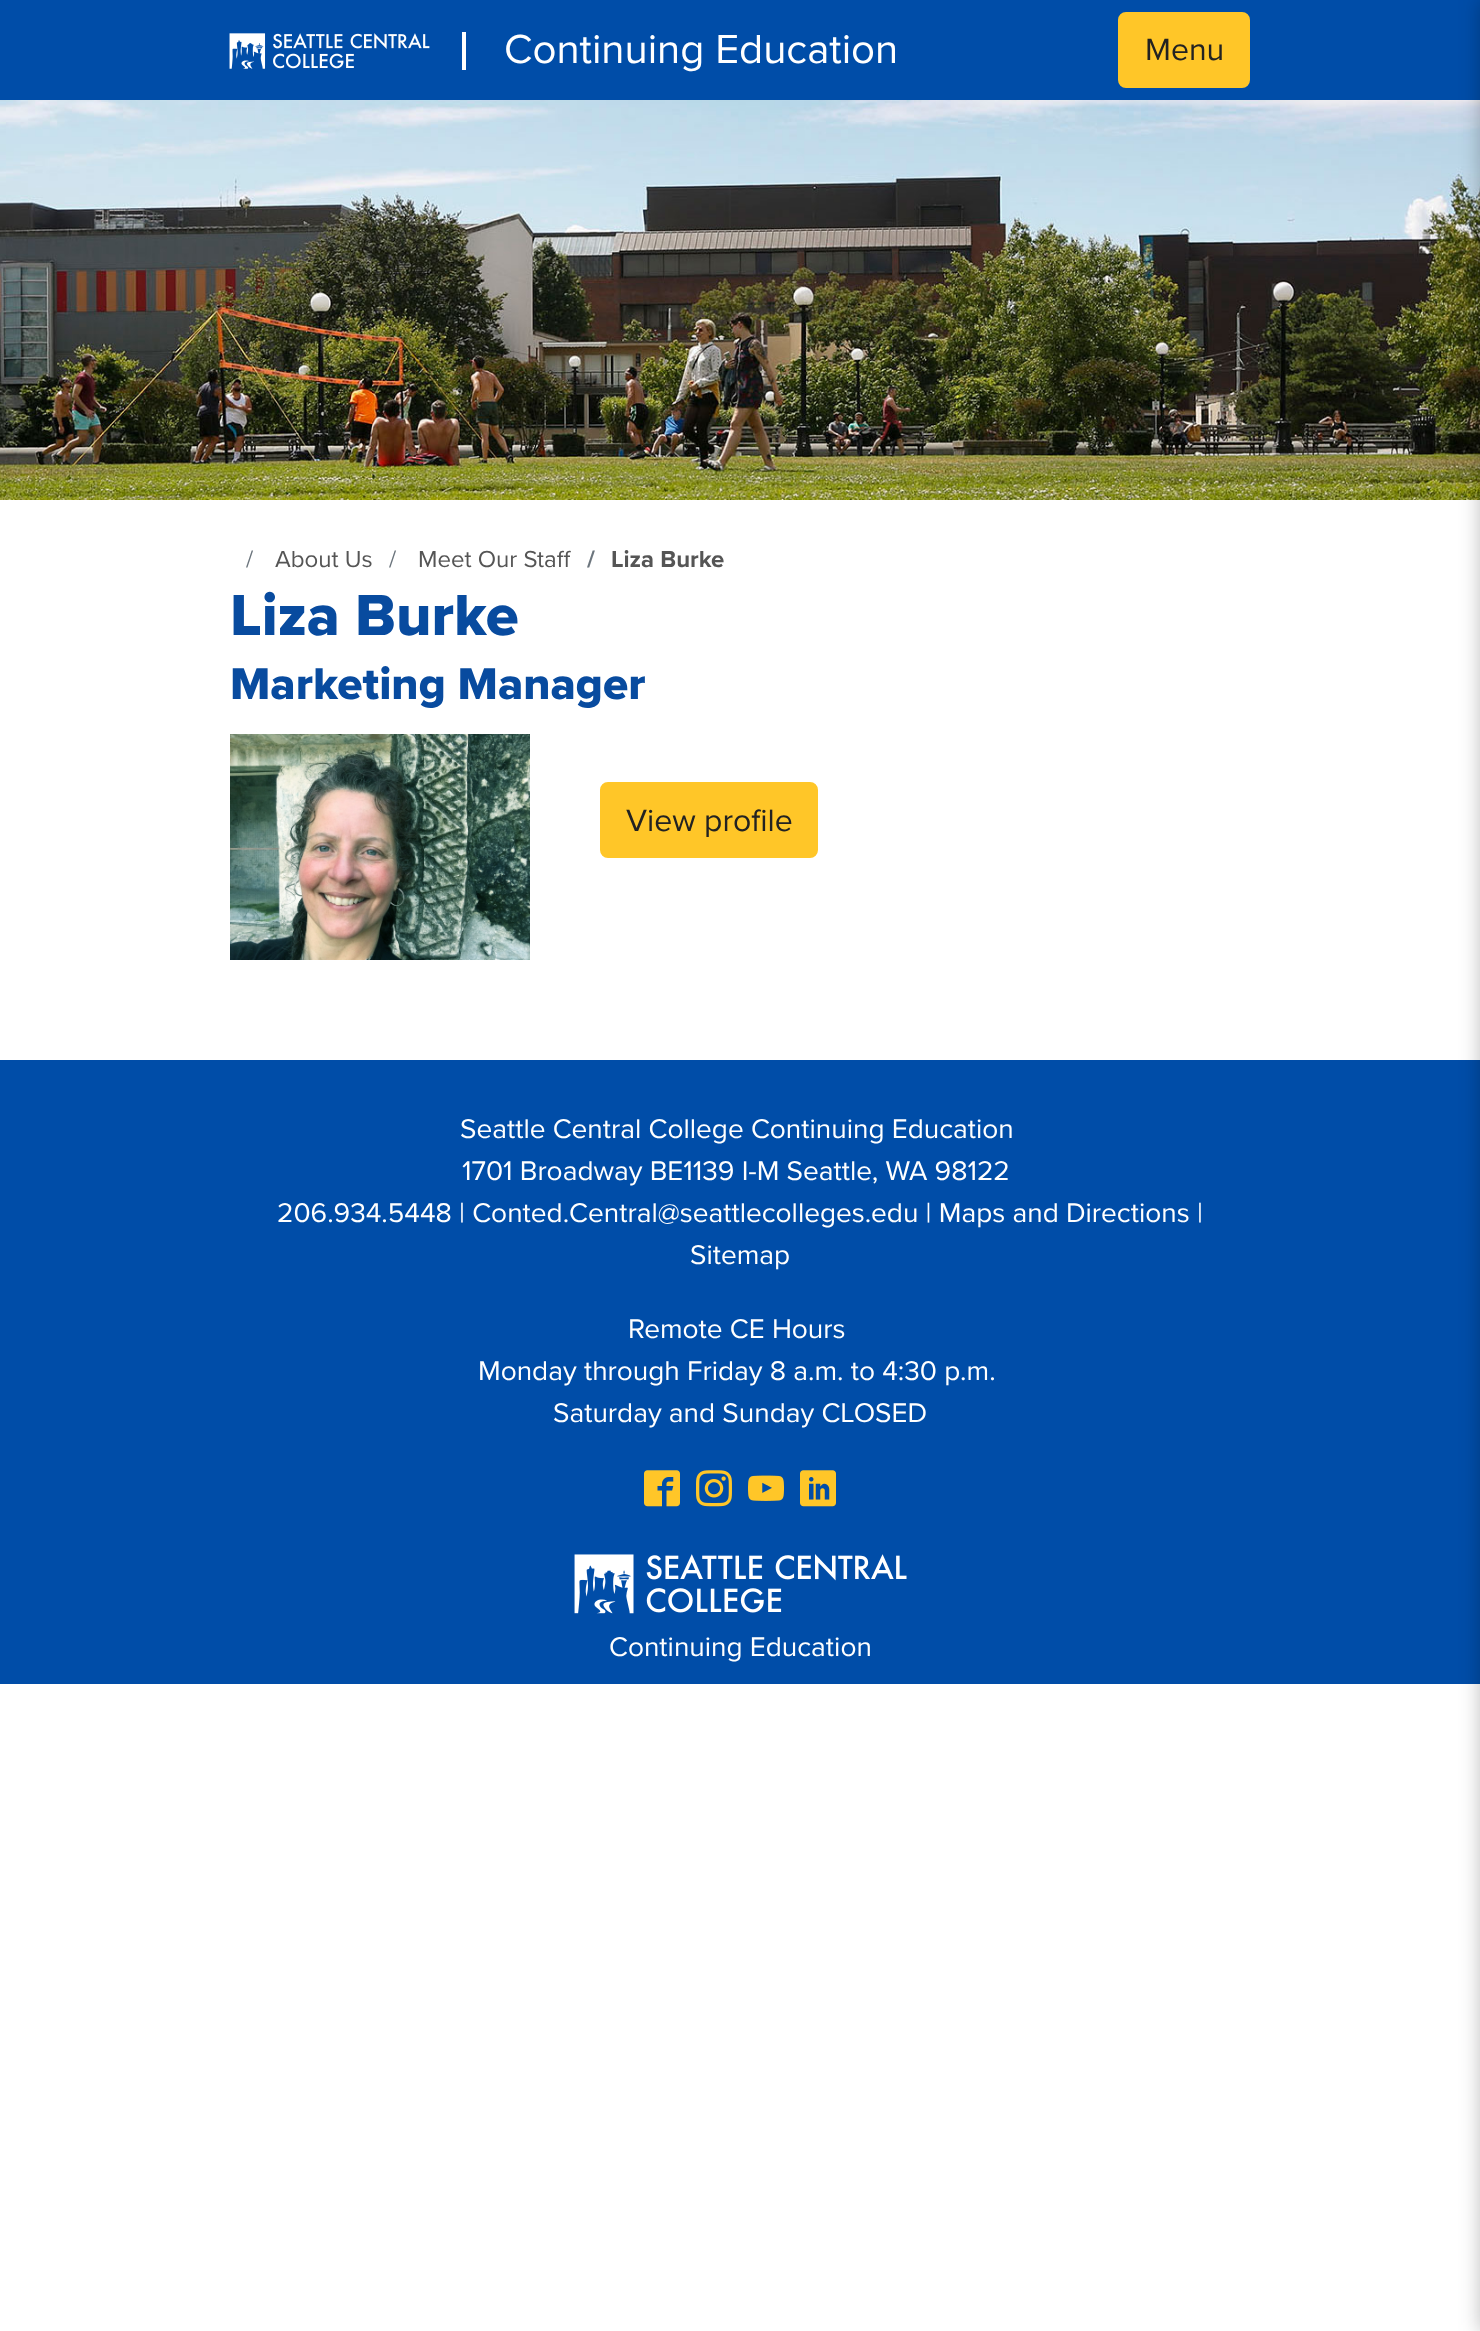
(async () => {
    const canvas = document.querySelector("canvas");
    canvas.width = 1480;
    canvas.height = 2331;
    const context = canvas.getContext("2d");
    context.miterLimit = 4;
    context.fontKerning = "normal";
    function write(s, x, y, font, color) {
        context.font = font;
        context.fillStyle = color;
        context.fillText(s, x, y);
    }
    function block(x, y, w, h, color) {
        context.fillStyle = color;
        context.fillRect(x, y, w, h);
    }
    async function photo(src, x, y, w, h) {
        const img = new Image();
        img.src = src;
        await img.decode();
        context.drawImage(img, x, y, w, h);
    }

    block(0, 0, 1480, 2331, "rgb(255, 255, 255)");
    block(0, 0, 1480, 100, "rgb(0, 77, 168)");
    await photo("media/1.png", 229, 33, 201, 36);
    block(462, 32, 4, 38, "rgb(255, 255, 255)");
    write("Continuing Education", 504, 63, "42px Proxima Nova", "rgb(255, 255, 255)");
    context.fillStyle = "rgb(255, 198, 40)";
    context.beginPath();
    context.roundRect(1119, 13, 130, 74, 7);
    context.fill();
    context.strokeStyle = "rgb(255, 198, 40)";
    context.lineWidth = 2;
    context.stroke();
    write("Menu", 1145, 60, "32px Proxima Nova", "rgb(34, 34, 34)");
    await photo("media/2.png", 0, 100, 1480, 400);
    block(0, 1060, 1480, 624, "rgb(0, 77, 168)");
    context.fillStyle = "rgba(0, 0, 0, 0.25)";
    context.filter = "blur(10px)";
    context.beginPath();
    context.rect(1480, 0, 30, 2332);
    context.fill();
    context.filter = "none";
    write("/", 246, 567, "24px Proxima Nova", "rgb(108, 117, 125)");
    write("About Us", 275, 567, "24px Proxima Nova", "rgb(85, 85, 85)");
    write("/", 389, 567, "24px Proxima Nova", "rgb(108, 117, 125)");
    write("Meet Our Staff", 418, 567, "24px Proxima Nova", "rgb(85, 85, 85)");
    write("/", 587, 567, "bold 24px Proxima Nova", "rgb(108, 117, 125)");
    write("Liza Burke", 611, 567, "bold 24px Proxima Nova", "rgb(85, 85, 85)");
    write("Liza Burke", 230, 635, "800 60px Proxima Nova", "rgb(8, 75, 159)");
    write("Marketing Manager", 230, 699, "800 46px Proxima Nova", "rgb(8, 75, 159)");
    await photo("media/3.png", 230, 734, 300, 226);
    context.fillStyle = "rgb(255, 198, 40)";
    context.beginPath();
    context.roundRect(601, 783, 216, 74, 7);
    context.fill();
    context.stroke();
    write("View profile", 626, 831, "32px Proxima Nova", "rgb(34, 34, 34)");
    write("Seattle Central College Continuing Education", 460, 1138, "28px Proxima Nova", "rgb(255, 255, 255)");
    write("1701 Broadway BE1139 I-M Seattle, WA 98122", 462, 1180, "28px Proxima Nova", "rgb(255, 255, 255)");
    write("206.934.5448 | Conted.Central@seattlecolleges.edu | Maps and Directions |", 277, 1222, "28px Proxima Nova", "rgb(255, 255, 255)");
    write("Sitemap", 690, 1264, "28px Proxima Nova", "rgb(255, 255, 255)");
    write("Remote CE Hours", 628, 1338, "28px Proxima Nova", "rgb(255, 255, 255)");
    write("Monday through Friday 8 a.m. to 4:30 p.m.", 478, 1380, "28px Proxima Nova", "rgb(255, 255, 255)");
    write("Saturday and Sunday CLOSED", 553, 1422, "28px Proxima Nova", "rgb(255, 255, 255)");
    await photo("media/4.png", 644, 1470, 36, 37);
    await photo("media/5.png", 696, 1470, 36, 37);
    await photo("media/6.png", 748, 1475, 36, 26);
    await photo("media/7.png", 800, 1470, 36, 37);
    await photo("media/8.png", 574, 1554, 333, 60);
    write("Continuing Education", 609, 1656, "28px Proxima Nova", "rgb(255, 255, 255)");
})();
